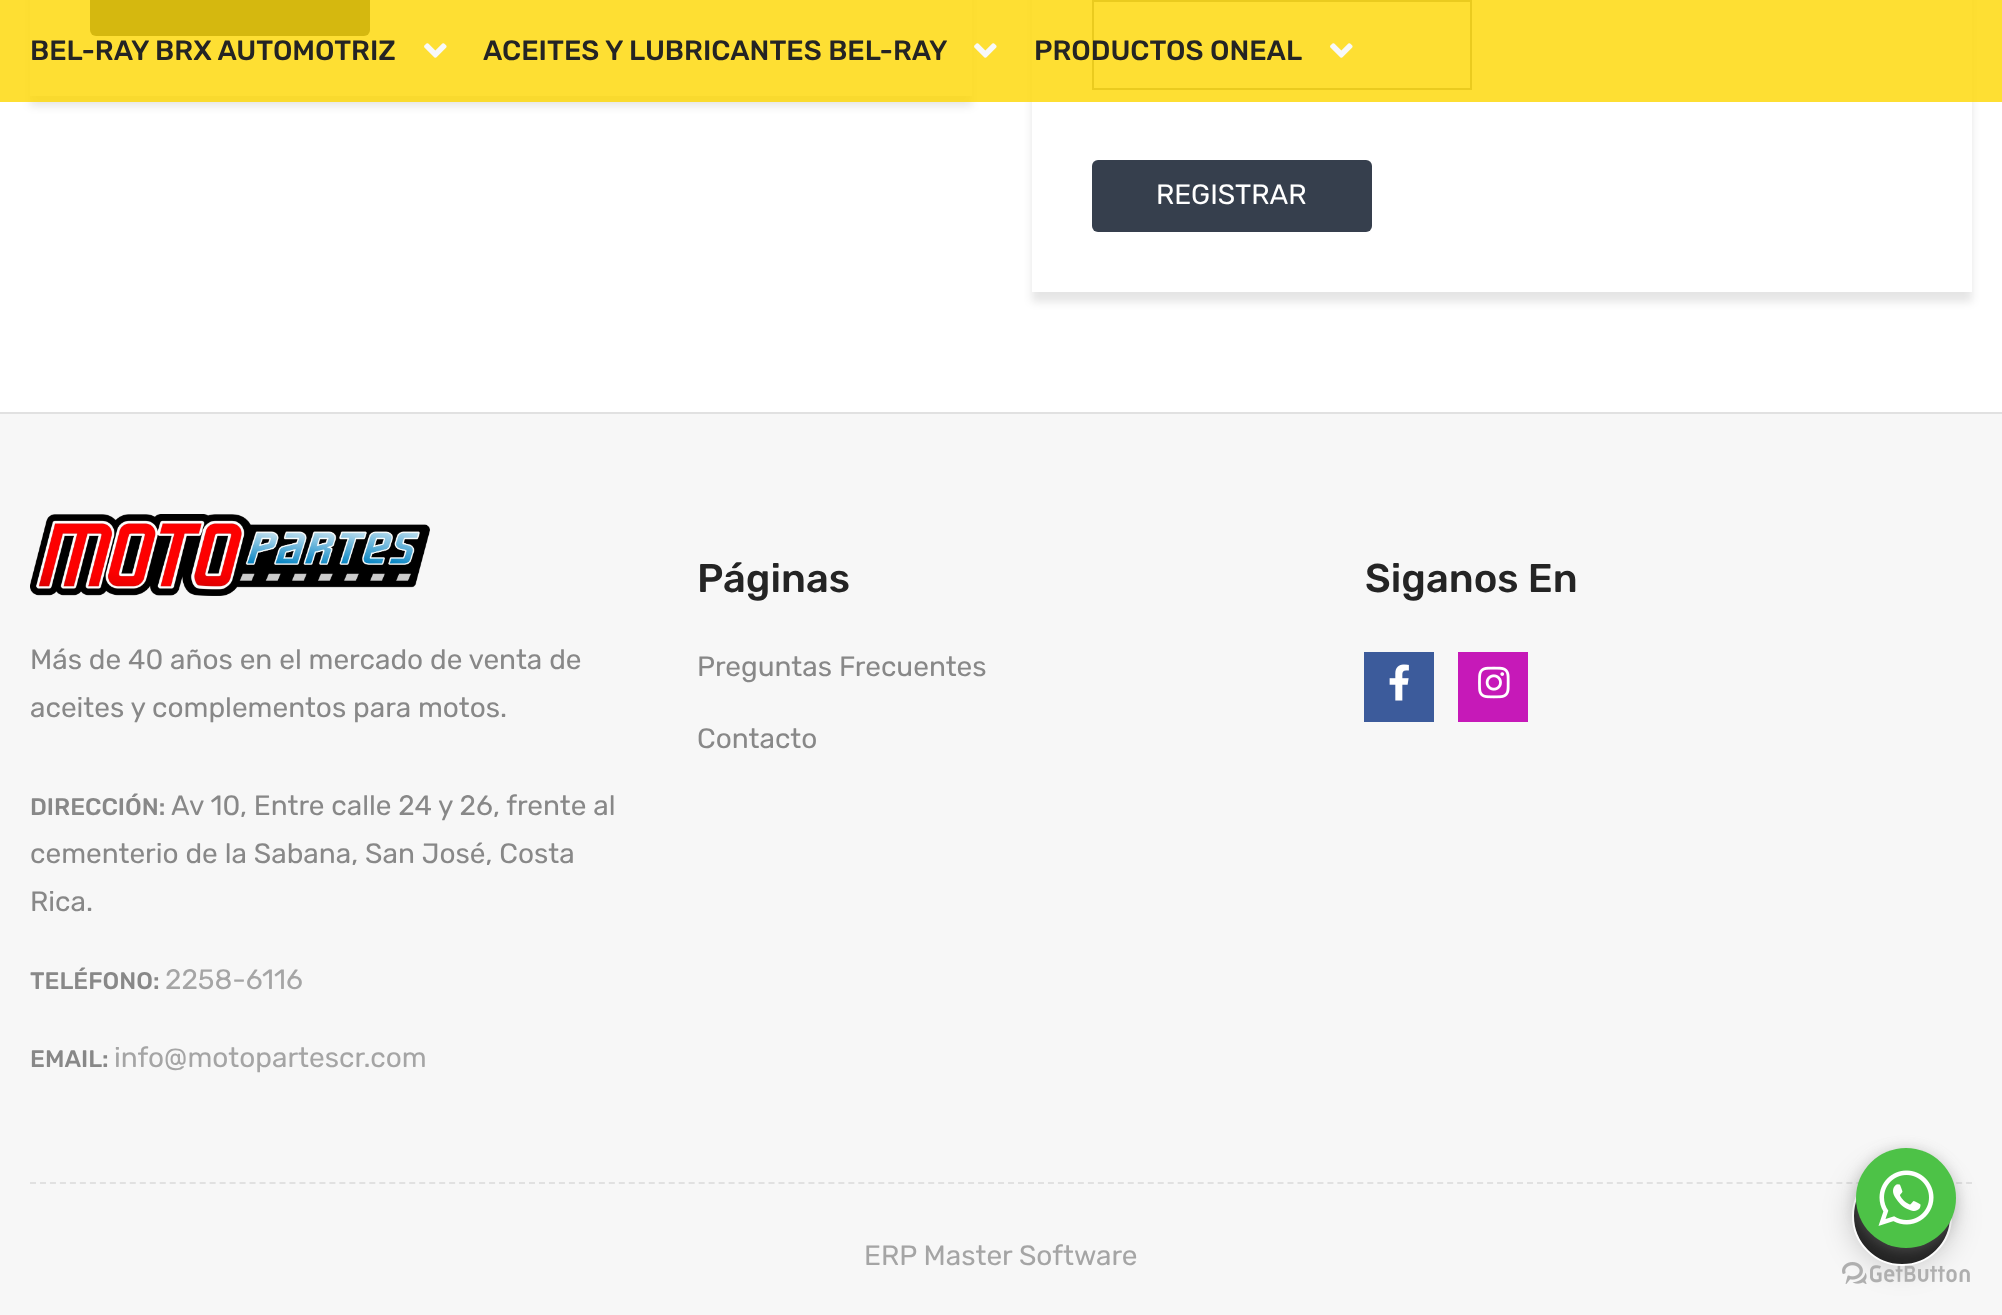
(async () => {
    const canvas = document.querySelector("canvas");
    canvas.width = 2002;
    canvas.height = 1315;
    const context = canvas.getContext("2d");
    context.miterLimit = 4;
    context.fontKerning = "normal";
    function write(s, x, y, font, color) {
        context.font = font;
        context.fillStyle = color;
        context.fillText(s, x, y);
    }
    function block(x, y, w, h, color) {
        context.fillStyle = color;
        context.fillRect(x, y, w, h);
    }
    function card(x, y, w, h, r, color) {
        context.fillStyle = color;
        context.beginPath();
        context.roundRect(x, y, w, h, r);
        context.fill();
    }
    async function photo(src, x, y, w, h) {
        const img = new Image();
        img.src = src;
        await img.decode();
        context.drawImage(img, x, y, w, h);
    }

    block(0, 0, 2002, 1315, "rgb(255, 255, 255)");
    context.save();
    context.beginPath();
    context.moveTo(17, 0);
    context.lineTo(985, 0);
    context.lineTo(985, 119);
    context.lineTo(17, 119);
    context.closePath();
    context.moveTo(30, -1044);
    context.lineTo(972, -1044);
    context.lineTo(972, 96);
    context.lineTo(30, 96);
    context.closePath();
    context.clip("evenodd");
    context.fillStyle = "rgba(0, 0, 0, 0.1)";
    context.filter = "blur(4px)";
    context.beginPath();
    context.rect(30, -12, 942, 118);
    context.fill();
    context.filter = "none";
    context.restore();
    card(90, -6, 280, 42, 6, "rgb(54, 63, 77)");
    context.save();
    context.beginPath();
    context.moveTo(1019, 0);
    context.lineTo(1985, 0);
    context.lineTo(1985, 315);
    context.lineTo(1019, 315);
    context.closePath();
    context.moveTo(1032, -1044);
    context.lineTo(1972, -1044);
    context.lineTo(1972, 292);
    context.lineTo(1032, 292);
    context.closePath();
    context.clip("evenodd");
    context.fillStyle = "rgba(0, 0, 0, 0.1)";
    context.filter = "blur(4px)";
    context.beginPath();
    context.rect(1032, -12, 940, 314);
    context.fill();
    context.filter = "none";
    context.restore();
    context.strokeStyle = "rgb(153, 153, 153)";
    context.lineWidth = 2;
    context.strokeRect(1093, 1, 378, 88);
    block(0, 0, 2002, 102, "rgba(254, 215, 0, 0.8)");
    write("BEL-RAY BRX AUTOMOTRIZ", 30, 60, "500 28px Rubik", "rgb(36, 36, 36)");
    await photo("media/1.png", 424, 43, 23, 15);
    write("ACEITES Y LUBRICANTES BEL-RAY", 483, 60, "500 28px Rubik", "rgb(36, 36, 36)");
    await photo("media/2.png", 974, 43, 23, 15);
    write("PRODUCTOS ONEAL", 1034, 60, "500 28px Rubik", "rgb(36, 36, 36)");
    await photo("media/1.png", 1330, 43, 23, 15);
    card(1092, 160, 280, 72, 6, "rgb(54, 63, 77)");
    write("REGISTRAR", 1156, 204, "28px Rubik", "rgb(255, 255, 255)");
    block(0, 414, 2002, 901, "rgb(247, 247, 247)");
    block(0, 412, 2002, 2, "rgb(225, 225, 225)");
    context.beginPath();
    context.moveTo(30, 1183);
    context.lineTo(1972, 1183);
    context.strokeStyle = "rgb(225, 225, 225)";
    context.setLineDash([6, 3.98]);
    context.stroke();
    write("Páginas", 697, 592, "500 40px Rubik", "rgb(36, 36, 36)");
    write("Preguntas Frecuentes", 697, 676, "28px Rubik", "rgb(136, 136, 136)");
    write("Contacto", 697, 748, "28px Rubik", "rgb(136, 136, 136)");
    write("Siganos En", 1365, 592, "500 40px Rubik", "rgb(36, 36, 36)");
    block(1364, 652, 70, 70, "rgb(60, 91, 155)");
    await photo("media/3.png", 1389, 664, 20, 37);
    block(1458, 652, 70, 70, "rgb(198, 25, 184)");
    await photo("media/4.png", 1478, 666, 32, 33);
    await photo("media/5.png", 30, 514, 400, 82);
    write("Más de 40 años en el mercado de venta de", 30, 669, "28px Rubik", "rgb(136, 136, 136)");
    write("aceites y complementos para motos.", 30, 717, "28px Rubik", "rgb(136, 136, 136)");
    write("DIRECCIÓN:", 30, 815, "500 24px Rubik", "rgb(136, 136, 136)");
    write("Av 10, Entre calle 24 y 26, frente al", 171, 815, "28px Rubik", "rgb(136, 136, 136)");
    write("cementerio de la Sabana, San José, Costa", 30, 863, "28px Rubik", "rgb(136, 136, 136)");
    write("Rica.", 30, 911, "28px Rubik", "rgb(136, 136, 136)");
    write("TELÉFONO:", 30, 989, "500 24px Rubik", "rgb(136, 136, 136)");
    write("2258-6116", 165, 989, "28px Rubik", "rgb(165, 165, 165)");
    write("EMAIL:", 30, 1067, "500 24px Rubik", "rgb(136, 136, 136)");
    write("info@motopartescr.com", 114, 1067, "28px Rubik", "rgb(165, 165, 165)");
    write("ERP Master Software", 864, 1265, "28px Rubik", "rgb(165, 165, 165)");
    context.fillStyle = "rgba(0, 0, 0, 0.2)";
    context.filter = "blur(15px)";
    context.beginPath();
    context.roundRect(1852, 1166, 100, 100, 50);
    context.fill();
    context.filter = "none";
    context.fillStyle = "rgb(36, 36, 36)";
    context.beginPath();
    context.arc(1902, 1216, 49, 0, Math.PI * 2);
    context.fill();
    context.strokeStyle = "rgb(255, 255, 255)";
    context.setLineDash([]);
    context.stroke();
    await photo("media/7.png", 1842, 1262, 128, 22);
    context.fillStyle = "rgba(136, 136, 136, 0.4)";
    context.filter = "blur(7px)";
    context.beginPath();
    context.roundRect(1856, 1150, 100, 100, 50);
    context.fill();
    context.filter = "none";
    context.fillStyle = "rgb(77, 194, 71)";
    context.beginPath();
    context.arc(1906, 1198, 50, 0, Math.PI * 2);
    context.fill();
    await photo("media/6.png", 1878, 1170, 56, 56);
})();
